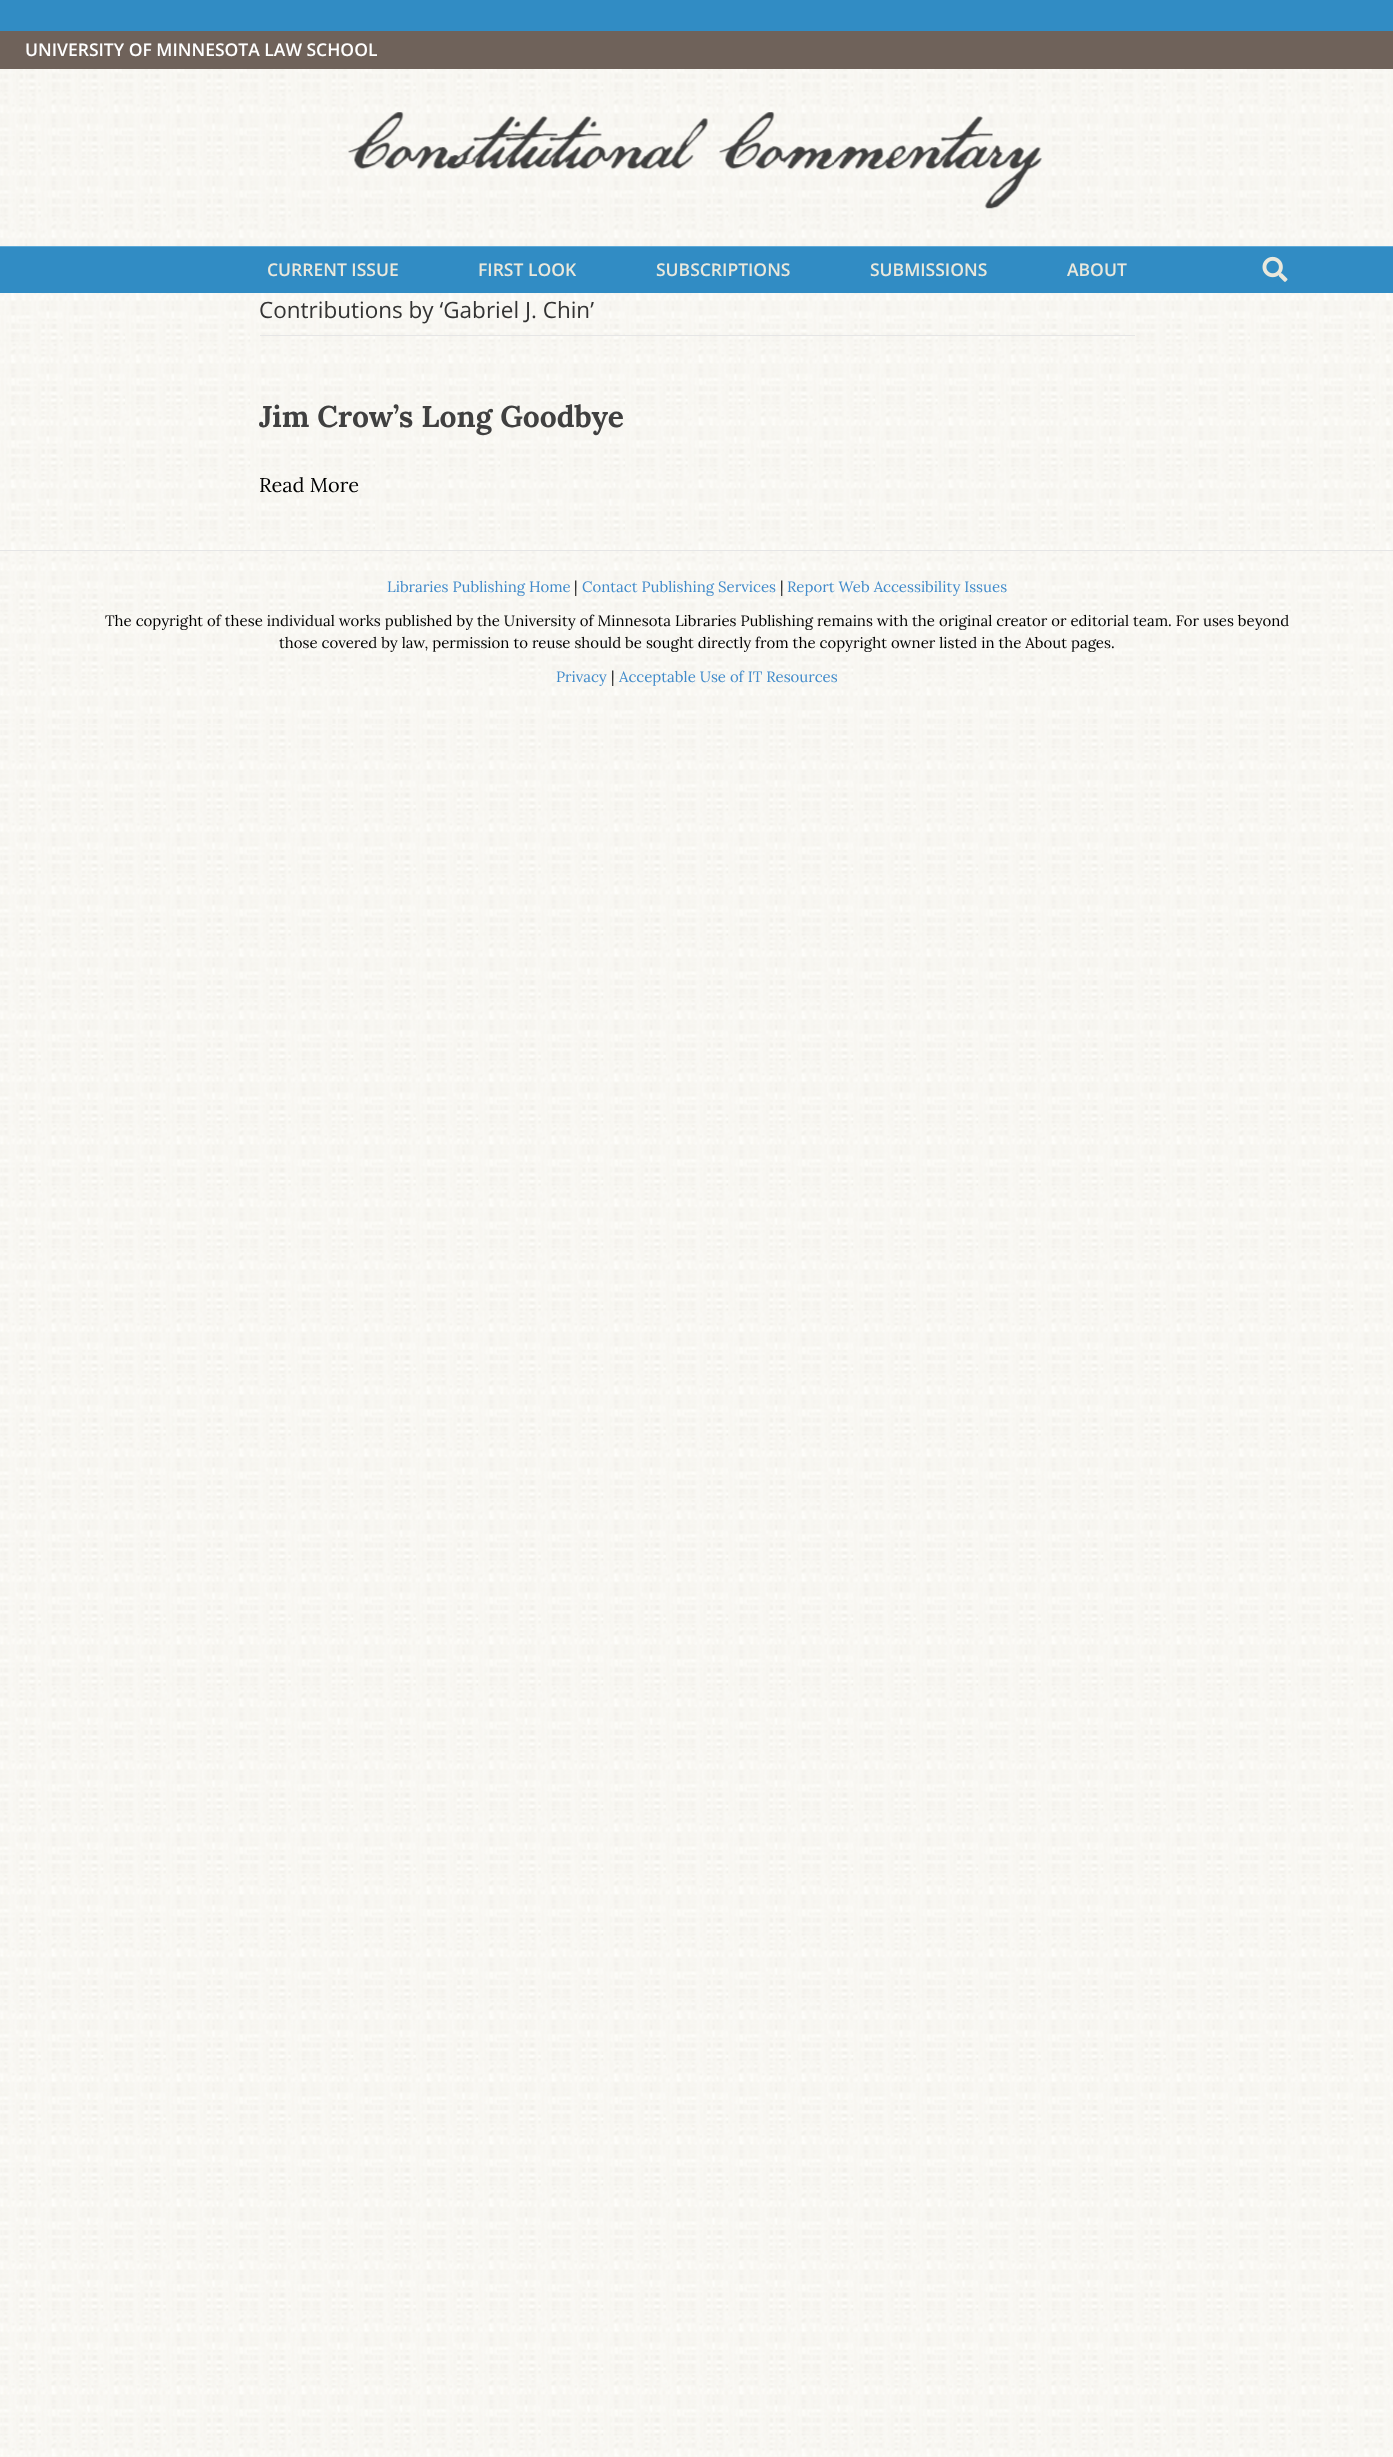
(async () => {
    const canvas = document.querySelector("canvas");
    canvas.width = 1393;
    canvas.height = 2457;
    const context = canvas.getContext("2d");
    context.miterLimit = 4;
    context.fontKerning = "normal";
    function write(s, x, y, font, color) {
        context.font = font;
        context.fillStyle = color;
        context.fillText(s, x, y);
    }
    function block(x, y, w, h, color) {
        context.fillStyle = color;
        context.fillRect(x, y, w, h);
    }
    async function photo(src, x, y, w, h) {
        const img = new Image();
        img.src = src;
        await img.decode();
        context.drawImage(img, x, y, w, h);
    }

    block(0, 0, 1393, 2457, "rgb(255, 255, 255)");
    await photo("media/1.png", 0, 725, 1393, 1732);
    block(0, 0, 1393, 31, "rgb(49, 140, 196)");
    await photo("media/2.png", 0, 69, 1393, 177);
    block(0, 31, 1393, 38, "rgb(111, 98, 90)");
    write("UNIVERSITY OF MINNESOTA LAW SCHOOL", 25, 56, "600 17.5px Open Sans", "rgb(255, 255, 255)");
    await photo("media/3.png", 348, 112, 694, 97);
    block(0, 247, 1393, 46, "rgb(49, 140, 196)");
    block(0, 246, 1393, 1, "rgb(96, 170, 215)");
    write("CURRENT ISSUE", 267, 276, "600 17.5px Open Sans", "rgb(234, 232, 220)");
    write("FIRST LOOK", 478, 276, "600 17.5px Open Sans", "rgb(234, 232, 220)");
    write("SUBSCRIPTIONS", 656, 276, "600 17.5px Open Sans", "rgb(234, 232, 220)");
    write("SUBMISSIONS", 870, 276, "600 17.5px Open Sans", "rgb(234, 232, 220)");
    write("ABOUT", 1067, 276, "600 17.5px Open Sans", "rgb(234, 232, 220)");
    await photo("media/4.png", 1262, 256, 26, 26);
    await photo("media/5.png", 0, 293, 1393, 257);
    block(260, 335, 875, 1, "rgb(230, 230, 230)");
    write("Contributions by ‘Gabriel J. Chin’", 259, 318, "22.5px Open Sans", "rgb(51, 51, 51)");
    write("Jim Crow’s Long Goodbye", 259, 427, "bold 30px Lora", "rgb(64, 64, 64)");
    write("Read More", 259, 492, "20px Lora", "rgb(0, 0, 0)");
    await photo("media/6.png", 0, 551, 1393, 174);
    block(0, 550, 1393, 1, "rgb(230, 230, 230)");
    write("Libraries Publishing Home", 387, 592, "15px Lora", "rgb(66, 139, 202)");
    write("|", 574, 592, "15px Lora", "rgb(0, 0, 0)");
    write("Contact Publishing Services", 582, 592, "15px Lora", "rgb(66, 139, 202)");
    write("|", 780, 592, "15px Lora", "rgb(0, 0, 0)");
    write("Report Web Accessibility Issues", 787, 592, "15px Lora", "rgb(66, 139, 202)");
    write("The copyright of these individual works published by the University of Minnesota Libraries Publishing remains with the original creator or editorial team. For uses beyond", 105, 626, "15px Lora", "rgb(0, 0, 0)");
    write("those covered by law, permission to reuse should be sought directly from the copyright owner listed in the About pages.", 279, 648, "15px Lora", "rgb(0, 0, 0)");
    write("Privacy", 556, 682, "15px Lora", "rgb(66, 139, 202)");
    write("|", 611, 682, "15px Lora", "rgb(0, 0, 0)");
    write("Acceptable Use of IT Resources", 619, 682, "15px Lora", "rgb(66, 139, 202)");
})();
